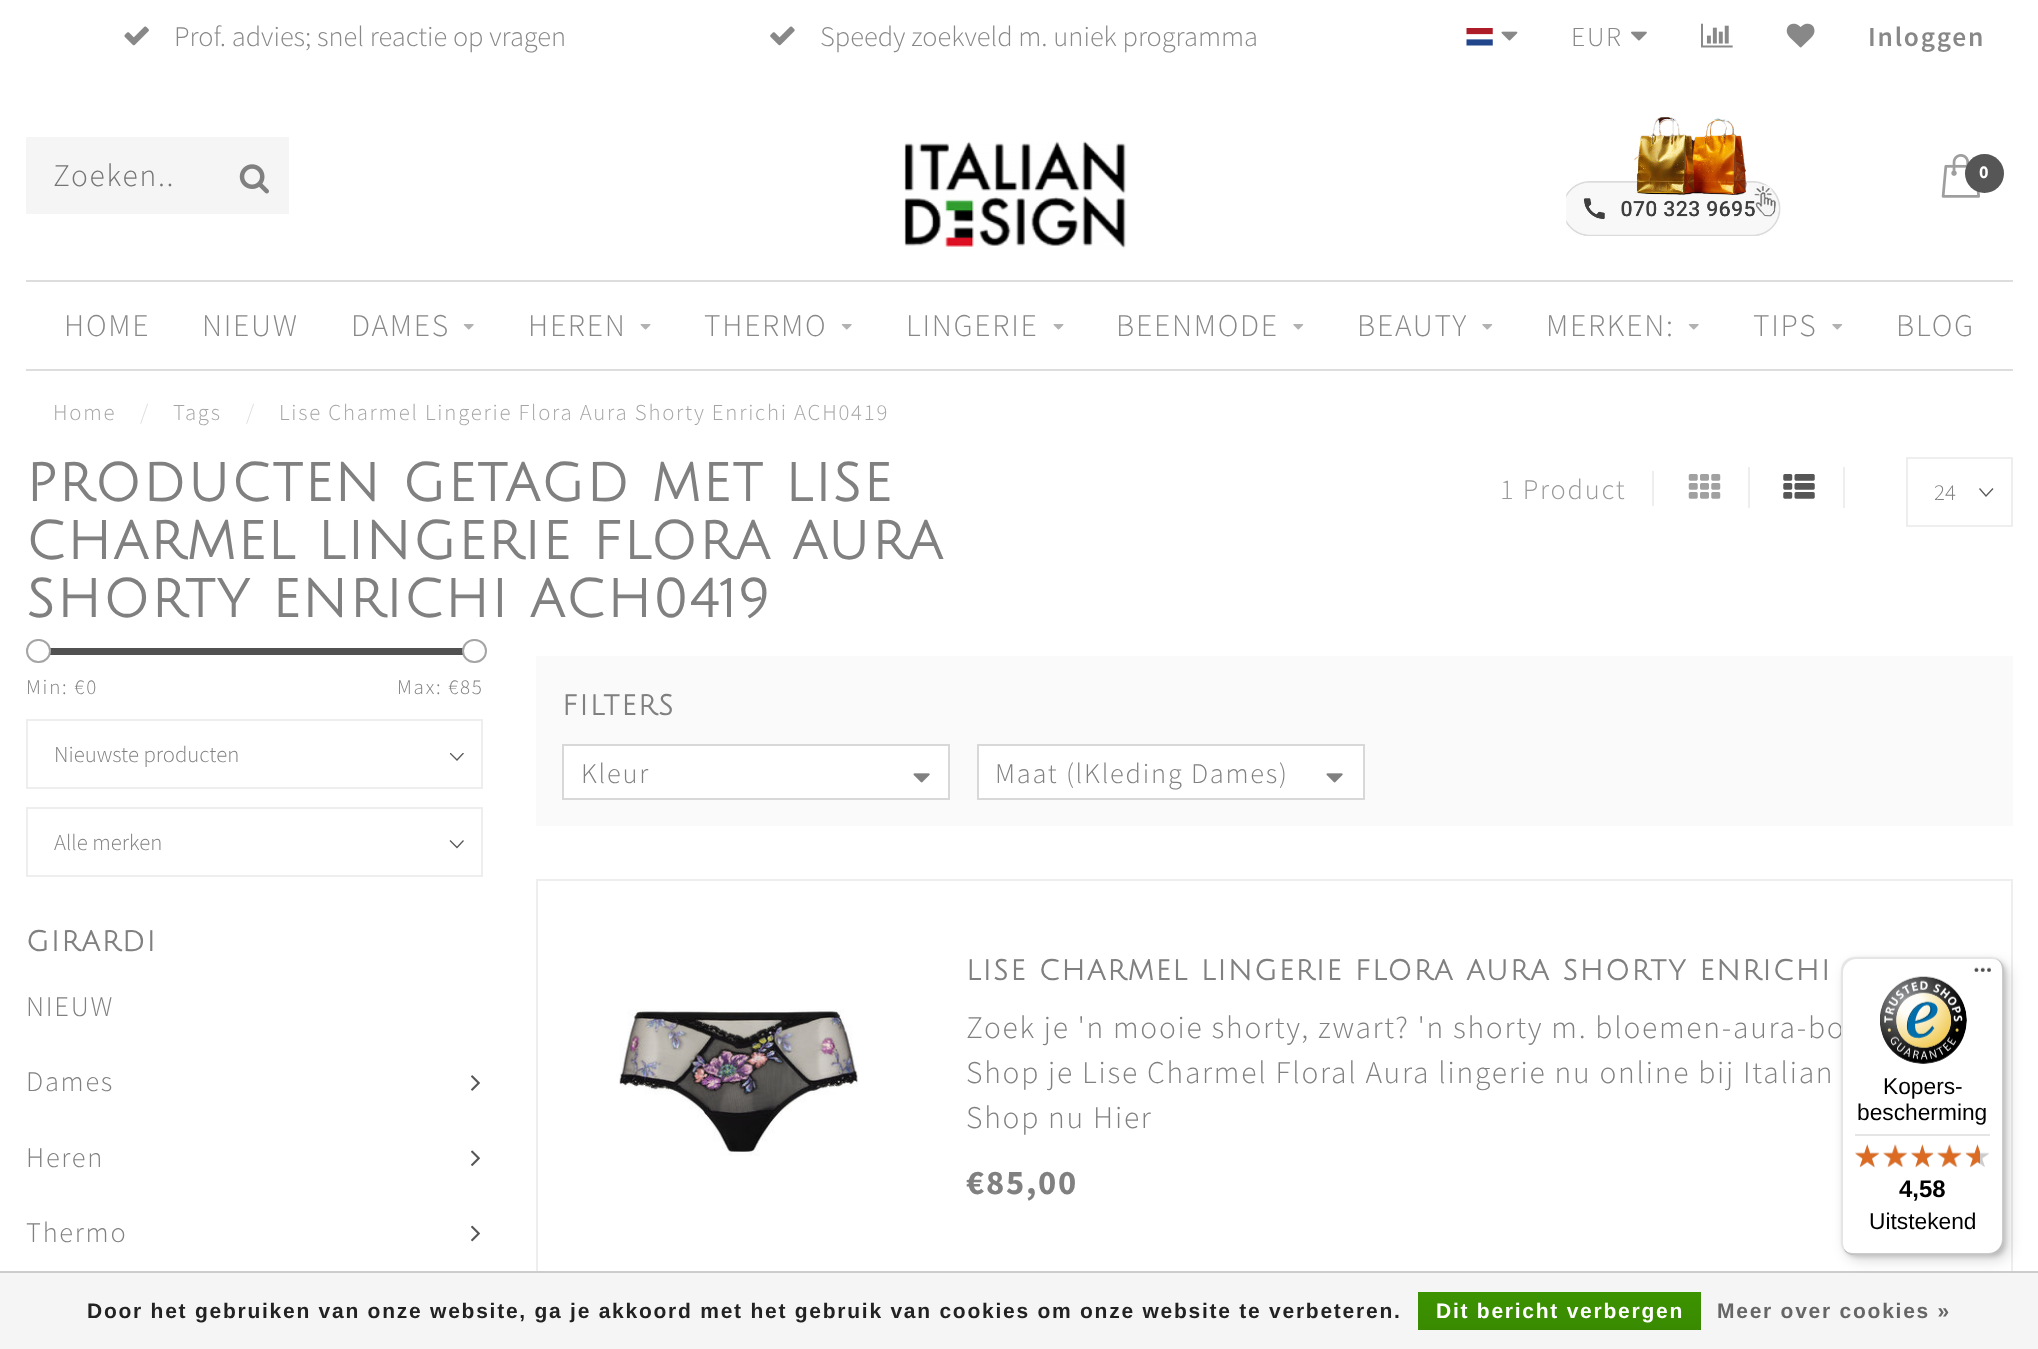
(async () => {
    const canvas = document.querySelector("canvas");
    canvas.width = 2038;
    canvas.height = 1349;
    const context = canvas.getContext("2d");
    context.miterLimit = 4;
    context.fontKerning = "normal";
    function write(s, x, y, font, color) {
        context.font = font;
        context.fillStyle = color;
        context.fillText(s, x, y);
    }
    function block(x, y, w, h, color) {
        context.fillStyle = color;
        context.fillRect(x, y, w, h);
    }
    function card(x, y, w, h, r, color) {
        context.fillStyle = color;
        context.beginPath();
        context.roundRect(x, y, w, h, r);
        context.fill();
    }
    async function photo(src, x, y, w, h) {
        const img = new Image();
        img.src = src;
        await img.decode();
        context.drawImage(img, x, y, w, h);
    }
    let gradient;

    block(0, 0, 2038, 1349, "rgb(255, 255, 255)");
    await photo("media/1.png", 124, 26, 25, 20);
    write("Prof. advies; snel reactie op vragen", 174, 46, "300 28.4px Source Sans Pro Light", "rgb(136, 136, 136)");
    await photo("media/2.png", 770, 26, 25, 20);
    write("Speedy zoekveld m. uniek programma", 820, 46, "300 28.4px Source Sans Pro Light", "rgb(136, 136, 136)");
    await photo("media/3.png", 1466, 28, 27, 18);
    await photo("media/4.png", 1501, 31, 17, 10);
    context.letterSpacing = "1.75px";
    write("EUR", 1571, 46, "300 27.5px Source Sans Pro Light", "rgb(136, 136, 136)");
    await photo("media/5.png", 1631, 31, 16, 10);
    await photo("media/6.png", 1701, 23, 32, 25);
    await photo("media/7.png", 1786, 23, 29, 25);
    write("Inloggen", 1868, 46, "600 27.5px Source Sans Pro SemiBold", "rgb(136, 136, 136)");
    block(26, 137, 263, 77, "rgb(245, 245, 245)");
    write("Zoeken..", 53, 186, "300 31.5px Source Sans Pro Light", "rgb(117, 117, 117)");
    await photo("media/8.png", 239, 164, 30, 30);
    await photo("media/9.png", 904, 141, 222, 109);
    await photo("media/10.png", 1566, 117, 215, 119);
    await photo("media/11.png", 1941, 154, 39, 44);
    context.fillStyle = "rgb(86, 86, 86)";
    context.beginPath();
    context.arc(1984.5, 173.5, 19.5, 0, Math.PI * 2);
    context.fill();
    write("0", 1979, 178, "bold 18px Source Sans Pro", "rgb(255, 255, 255)");
    block(26, 280, 1987, 2, "rgb(221, 221, 221)");
    block(26, 369, 1987, 2, "rgb(221, 221, 221)");
    write("HOME", 64, 336, "300 31.5px Source Sans Pro Light", "rgb(136, 136, 136)");
    write("NIEUW", 202, 336, "300 31.5px Source Sans Pro Light", "rgb(136, 136, 136)");
    write("DAMES", 351, 336, "300 31.5px Source Sans Pro Light", "rgb(136, 136, 136)");
    await photo("media/12.png", 463, 324, 11, 6);
    write("HEREN", 528, 336, "300 31.5px Source Sans Pro Light", "rgb(136, 136, 136)");
    await photo("media/13.png", 640, 324, 11, 6);
    write("THERMO", 704, 336, "300 31.5px Source Sans Pro Light", "rgb(136, 136, 136)");
    await photo("media/12.png", 841, 324, 11, 6);
    write("LINGERIE", 906, 336, "300 31.5px Source Sans Pro Light", "rgb(136, 136, 136)");
    await photo("media/13.png", 1053, 324, 11, 6);
    write("BEENMODE", 1116, 336, "300 31.5px Source Sans Pro Light", "rgb(136, 136, 136)");
    await photo("media/14.png", 1293, 324, 11, 6);
    write("BEAUTY", 1357, 336, "300 31.5px Source Sans Pro Light", "rgb(136, 136, 136)");
    await photo("media/14.png", 1482, 324, 11, 6);
    write("MERKEN:", 1546, 336, "300 31.5px Source Sans Pro Light", "rgb(136, 136, 136)");
    await photo("media/12.png", 1688, 324, 11, 6);
    write("TIPS", 1753, 336, "300 31.5px Source Sans Pro Light", "rgb(136, 136, 136)");
    await photo("media/14.png", 1832, 324, 11, 6);
    write("BLOG", 1896, 336, "300 31.5px Source Sans Pro Light", "rgb(136, 136, 136)");
    write("Home", 53, 420, "300 22.75px Source Sans Pro Light", "rgb(165, 165, 165)");
    write("/", 140, 420, "300 22.75px Source Sans Pro Light", "rgb(221, 221, 221)");
    write("Tags", 173, 420, "300 22.75px Source Sans Pro Light", "rgb(165, 165, 165)");
    write("/", 246, 420, "300 22.75px Source Sans Pro Light", "rgb(221, 221, 221)");
    write("Lise Charmel Lingerie Flora Aura Shorty Enrichi ACH0419", 279, 420, "300 22.75px Source Sans Pro Light", "rgb(165, 165, 165)");
    write("PRODUCTEN GETAGD MET LISE", 26, 501, "bold 52.5px Julius Sans One", "rgb(128, 128, 128)");
    write("CHARMEL LINGERIE FLORA AURA", 26, 559, "bold 52.5px Julius Sans One", "rgb(128, 128, 128)");
    write("SHORTY ENRICHI ACH0419", 26, 617, "bold 52.5px Julius Sans One", "rgb(128, 128, 128)");
    write("1 Product", 1500, 499, "300 28.4px Source Sans Pro Light", "rgb(153, 153, 153)");
    block(1652, 471, 2, 35, "rgb(238, 238, 238)");
    block(1748, 467, 2, 41, "rgb(238, 238, 238)");
    await photo("media/15.png", 1688, 474, 33, 25);
    block(1843, 467, 2, 41, "rgb(238, 238, 238)");
    await photo("media/16.png", 1783, 474, 32, 25);
    context.beginPath();
    context.moveTo(1993, 488.5);
    context.lineTo(1986, 496);
    context.lineTo(1979.5, 488.5);
    context.strokeStyle = "rgb(89, 89, 89)";
    context.lineWidth = 1.3;
    context.stroke();
    context.strokeStyle = "rgb(238, 238, 238)";
    context.lineWidth = 2;
    context.strokeRect(1907, 458, 105, 68);
    context.letterSpacing = "0px";
    write("24", 1934, 500, "300 22.75px Source Sans Pro Light", "rgb(128, 128, 128)");
    block(26, 648, 1, 7, "rgb(245, 245, 245)");
    block(44, 648, 419, 7, "rgb(81, 81, 81)");
    context.fillStyle = "rgb(255, 255, 255)";
    context.beginPath();
    context.roundRect(27, 640, 23, 22, 11);
    context.fill();
    context.strokeStyle = "rgb(165, 165, 165)";
    context.stroke();
    context.beginPath();
    context.roundRect(463, 640, 23, 22, 11);
    context.fill();
    context.stroke();
    context.letterSpacing = "1.75px";
    write("Min: €0", 26, 694, "300 21px Source Sans Pro Light", "rgb(128, 128, 128)");
    write("Max: €85", 397, 694, "300 21px Source Sans Pro Light", "rgb(128, 128, 128)");
    context.save();
    context.beginPath();
    context.rect(450, 753, 14, 8);
    context.clip();
    context.beginPath();
    context.moveTo(463.5, 753);
    context.lineTo(457, 760);
    context.lineTo(450, 753);
    context.strokeStyle = "rgb(89, 89, 89)";
    context.lineWidth = 1.3;
    context.stroke();
    context.restore();
    context.strokeStyle = "rgb(238, 238, 238)";
    context.strokeRect(27, 720, 455, 68);
    context.letterSpacing = "0px";
    write("Nieuwste producten", 54, 762, "300 22.75px Source Sans Pro Light", "rgb(128, 128, 128)");
    context.beginPath();
    context.moveTo(463.5, 840.5);
    context.lineTo(457, 847.5);
    context.lineTo(450, 840.5);
    context.strokeStyle = "rgb(89, 89, 89)";
    context.lineWidth = 1.3;
    context.stroke();
    context.strokeStyle = "rgb(238, 238, 238)";
    context.lineWidth = 2;
    context.strokeRect(27, 808, 455, 68);
    write("Alle merken", 54, 850, "300 22.75px Source Sans Pro Light", "rgb(128, 128, 128)");
    context.letterSpacing = "1.75px";
    write("GIRARDI", 26, 951, "bold 28px Julius Sans One", "rgb(128, 128, 128)");
    write("NIEUW", 26, 1016, "300 28.4px Source Sans Pro Light", "rgb(128, 128, 128)");
    write("Dames", 26, 1091, "300 28.4px Source Sans Pro Light", "rgb(128, 128, 128)");
    await photo("media/17.png", 471, 1075, 9, 16);
    write("Heren", 26, 1167, "300 28.4px Source Sans Pro Light", "rgb(128, 128, 128)");
    await photo("media/18.png", 471, 1150, 9, 16);
    write("Thermo", 26, 1242, "300 28.4px Source Sans Pro Light", "rgb(128, 128, 128)");
    await photo("media/19.png", 471, 1225, 9, 17);
    block(536, 656, 1477, 170, "rgb(250, 250, 250)");
    write("FILTERS", 562, 715, "bold 28px Julius Sans One", "rgb(128, 128, 128)");
    context.fillStyle = "rgb(255, 255, 255)";
    context.beginPath();
    context.rect(563, 745, 386, 54);
    context.fill();
    context.strokeStyle = "rgb(216, 216, 216)";
    context.stroke();
    write("Kleur", 581, 783, "300 28.4px Source Sans Pro Light", "rgb(128, 128, 128)");
    await photo("media/20.png", 913, 773, 17, 10);
    context.fillStyle = "rgb(255, 255, 255)";
    context.beginPath();
    context.rect(978, 745, 386, 54);
    context.fill();
    context.stroke();
    write("Maat (lKleding Dames)", 995, 783, "300 28.4px Source Sans Pro Light", "rgb(128, 128, 128)");
    await photo("media/20.png", 1326, 773, 17, 10);
    context.strokeStyle = "rgb(238, 238, 238)";
    context.strokeRect(537, 880, 1475, 404);
    await photo("media/21.png", 619, 1009, 240, 147);
    write("LISE CHARMEL LINGERIE FLORA AURA SHORTY ENRICHI", 966, 980, "bold 28px Julius Sans One", "rgb(128, 128, 128)");
    write("Zoek je 'n mooie shorty, zwart? 'n shorty m. bloemen-aura-bo", 966, 1038, "300 31.5px Source Sans Pro Light", "rgb(128, 128, 128)");
    write("Shop je Lise Charmel Floral Aura lingerie nu online bij Italian", 966, 1083, "300 31.5px Source Sans Pro Light", "rgb(128, 128, 128)");
    write("Shop nu Hier", 966, 1128, "300 31.5px Source Sans Pro Light", "rgb(128, 128, 128)");
    write("€85,00", 966, 1194, "bold 34.5px Source Sans Pro", "rgb(128, 128, 128)");
    block(0, 1273, 2038, 76, "rgb(245, 245, 245)");
    block(0, 1271, 2038, 2, "rgb(204, 204, 204)");
    write("Door het gebruiken van onze website, ga je akkoord met het gebruik van cookies om onze website te verbeteren.", 87, 1318, "bold 21px Liberation Sans", "rgb(34, 34, 34)");
    gradient = context.createLinearGradient(1559, 1292, 1559, 1330);
    gradient.addColorStop(0, "rgb(60, 147, 0)");
    gradient.addColorStop(1, "rgb(57, 138, 0)");
    context.fillStyle = gradient;
    context.fillRect(1418, 1292, 283, 38);
    write("Dit bericht verbergen", 1436, 1318, "bold 21px Liberation Sans", "rgb(255, 255, 255)");
    write("Meer over cookies »", 1717, 1318, "bold 21px Liberation Sans", "rgb(102, 102, 102)");
    context.fillStyle = "rgba(0, 0, 0, 0.15)";
    context.filter = "blur(7px)";
    context.beginPath();
    context.roundRect(1846, 963, 163, 297, 14);
    context.fill();
    context.filter = "none";
    context.filter = "blur(2px)";
    context.beginPath();
    context.roundRect(1843, 959, 163, 298, 14);
    context.fill();
    context.filter = "none";
    card(1841, 957, 163, 298, 14, "rgb(255, 255, 255)");
    context.fillStyle = "rgba(0, 0, 0, 0.1)";
    context.beginPath();
    context.moveTo(1857, 959);
    context.lineTo(1992, 959);
    context.bezierCurveTo(1995, 959, 1999, 960, 2001, 963);
    context.bezierCurveTo(1999, 959, 1995, 957, 1990, 957);
    context.lineTo(1855, 957);
    context.bezierCurveTo(1847, 957, 1841, 963, 1841, 971);
    context.lineTo(1841, 1241);
    context.bezierCurveTo(1841, 1247, 1844, 1251, 1849, 1254);
    context.bezierCurveTo(1845, 1251, 1843, 1247, 1843, 1242);
    context.lineTo(1843, 973);
    context.bezierCurveTo(1843, 965, 1849, 959, 1857, 959);
    context.closePath();
    context.fill();
    context.fillStyle = "rgba(0, 0, 0, 0.2)";
    context.beginPath();
    context.moveTo(1844, 1249);
    context.bezierCurveTo(1846, 1253, 1850, 1255, 1855, 1255);
    context.lineTo(1990, 1255);
    context.bezierCurveTo(1998, 1255, 2004, 1249, 2004, 1241);
    context.lineTo(2004, 971);
    context.bezierCurveTo(2004, 965, 2001, 961, 1996, 958);
    context.bezierCurveTo(2000, 961, 2002, 965, 2002, 970);
    context.lineTo(2002, 1239);
    context.bezierCurveTo(2002, 1247, 1996, 1253, 1988, 1253);
    context.lineTo(1853, 1253);
    context.bezierCurveTo(1850, 1253, 1846, 1252, 1844, 1249);
    context.closePath();
    context.fill();
    context.fillStyle = "rgba(50, 50, 50, 0.2)";
    context.beginPath();
    context.moveTo(1844, 1249);
    context.bezierCurveTo(1846, 1253, 1850, 1255, 1855, 1255);
    context.lineTo(1990, 1255);
    context.bezierCurveTo(1998, 1255, 2004, 1249, 2004, 1241);
    context.lineTo(2004, 971);
    context.bezierCurveTo(2004, 966, 2002, 962, 1998, 960);
    context.bezierCurveTo(2001, 962, 2003, 966, 2003, 970);
    context.lineTo(2003, 1240);
    context.bezierCurveTo(2003, 1247, 1996, 1254, 1989, 1254);
    context.lineTo(1854, 1254);
    context.bezierCurveTo(1850, 1254, 1846, 1252, 1844, 1249);
    context.closePath();
    context.fill();
    context.fillStyle = "rgba(255, 255, 255, 0.3)";
    context.beginPath();
    context.moveTo(1846, 1251);
    context.bezierCurveTo(1848, 1254, 1851, 1255, 1855, 1255);
    context.lineTo(1990, 1255);
    context.bezierCurveTo(1998, 1255, 2004, 1249, 2004, 1241);
    context.lineTo(2004, 971);
    context.bezierCurveTo(2004, 966, 2002, 962, 1999, 960);
    context.bezierCurveTo(2001, 963, 2003, 966, 2003, 970);
    context.lineTo(2003, 1240);
    context.bezierCurveTo(2003, 1248, 1997, 1254, 1989, 1254);
    context.lineTo(1854, 1254);
    context.bezierCurveTo(1851, 1254, 1848, 1253, 1846, 1251);
    context.closePath();
    context.fill();
    await photo("media/22.png", 1974, 967, 17, 5);
    await photo("media/23.png", 1880, 976, 87, 88);
    context.letterSpacing = "0px";
    write("Kopers-", 1883, 1094, "22.75px Liberation Sans", "rgb(0, 0, 0)");
    write("bescherming", 1857, 1120, "22.75px Liberation Sans", "rgb(0, 0, 0)");
    block(1855, 1134, 135, 2, "rgb(229, 229, 229)");
    await photo("media/24.png", 1855, 1144, 24, 23);
    await photo("media/25.png", 1883, 1144, 24, 23);
    await photo("media/26.png", 1911, 1144, 22, 23);
    await photo("media/27.png", 1937, 1144, 25, 23);
    await photo("media/28.png", 1966, 1144, 23, 23);
    await photo("media/29.png", 1855, 1144, 24, 24);
    await photo("media/30.png", 1883, 1144, 25, 24);
    await photo("media/31.png", 1911, 1144, 23, 24);
    await photo("media/32.png", 1937, 1144, 25, 24);
    await photo("media/33.png", 1965, 1144, 15, 24);
    write("4,58", 1899, 1197, "bold 24px Liberation Sans", "rgb(0, 0, 0)");
    write("Uitstekend", 1869, 1229, "22.75px Liberation Sans", "rgb(0, 0, 0)");
})();
